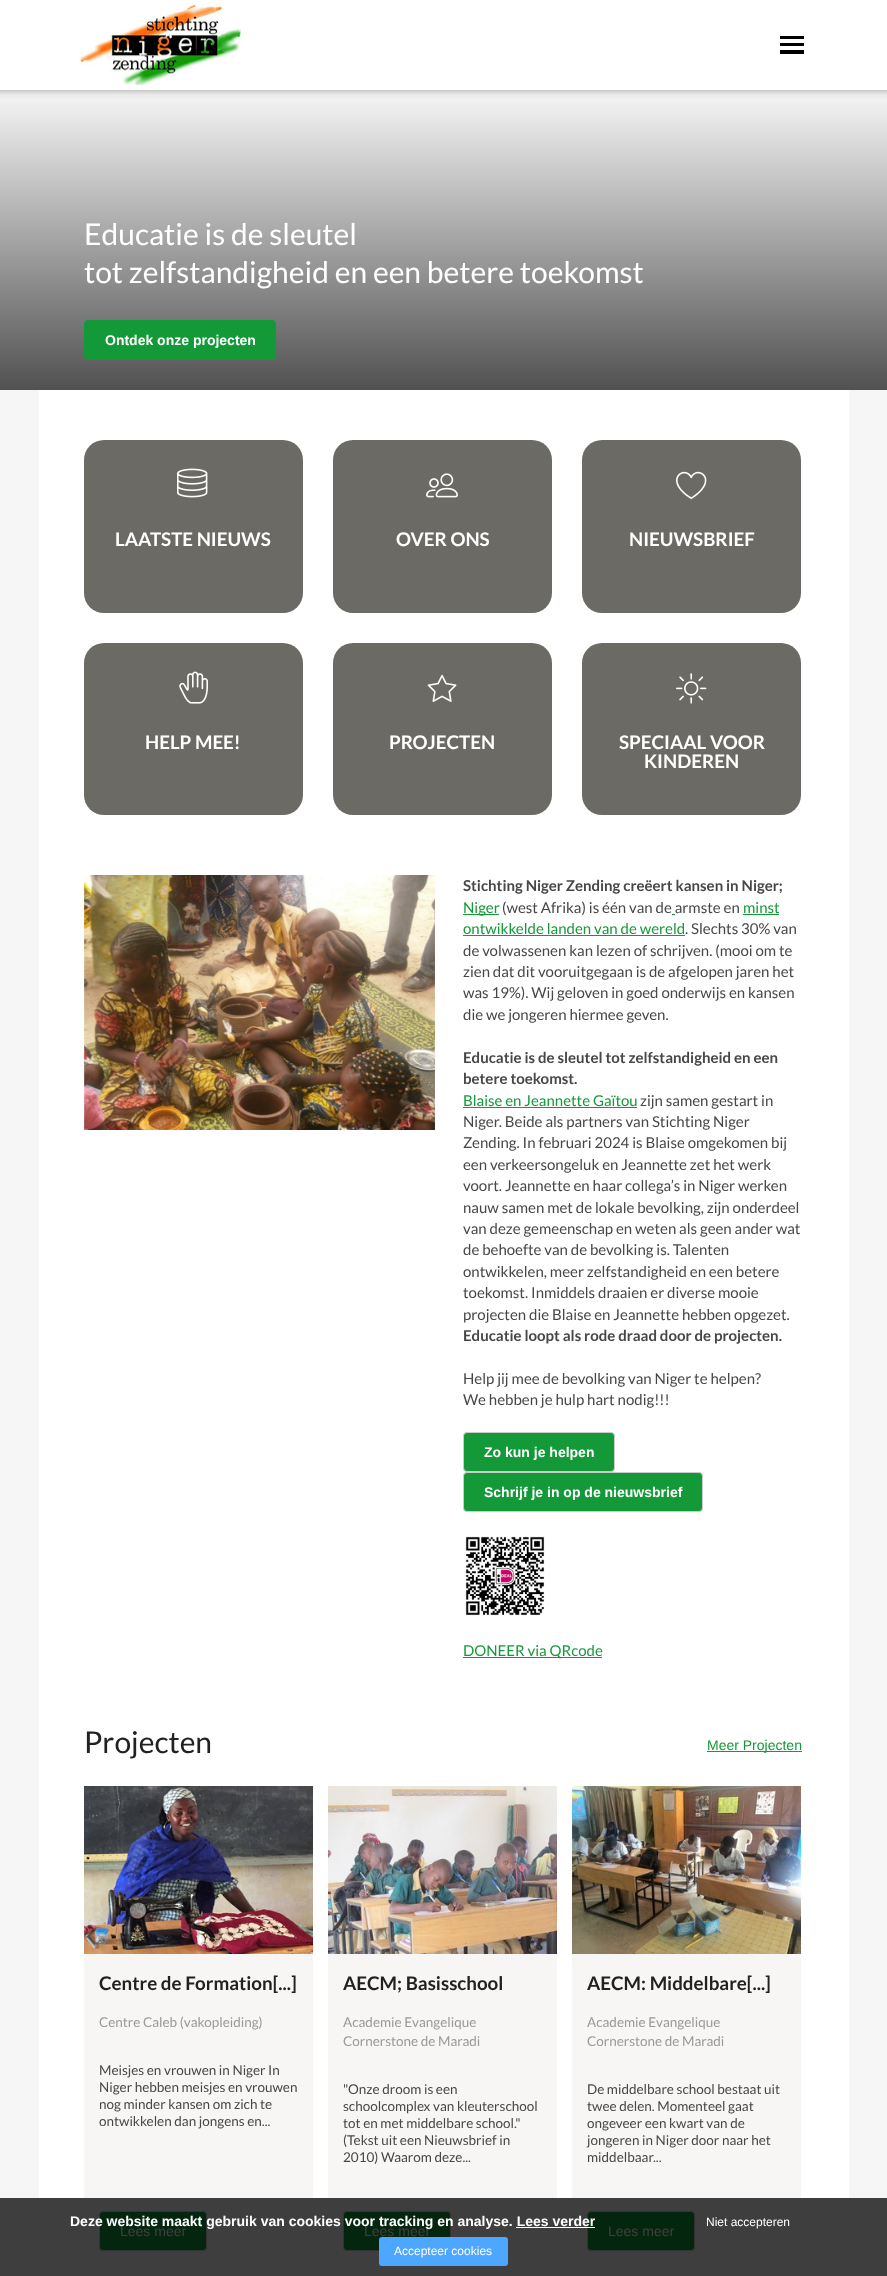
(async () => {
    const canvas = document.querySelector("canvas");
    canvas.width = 887;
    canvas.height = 2276;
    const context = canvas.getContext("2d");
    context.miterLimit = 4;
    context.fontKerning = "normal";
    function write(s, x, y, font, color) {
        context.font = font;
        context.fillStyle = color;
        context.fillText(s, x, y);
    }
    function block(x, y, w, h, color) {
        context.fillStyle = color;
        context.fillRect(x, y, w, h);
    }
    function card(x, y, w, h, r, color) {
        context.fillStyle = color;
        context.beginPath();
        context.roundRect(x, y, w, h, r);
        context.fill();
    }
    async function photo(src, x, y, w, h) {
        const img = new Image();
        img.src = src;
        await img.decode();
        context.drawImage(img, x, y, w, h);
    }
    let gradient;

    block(0, 0, 887, 2276, "rgb(246, 246, 246)");
    block(0, 2198, 887, 78, "rgb(62, 62, 62)");
    gradient = context.createLinearGradient(444, 90, 444, 390);
    gradient.addColorStop(0, "rgb(247, 247, 247)");
    gradient.addColorStop(1, "rgb(81, 81, 81)");
    context.fillStyle = gradient;
    context.fillRect(0, 96, 887, 294);
    context.fillStyle = "rgb(153, 153, 153)";
    context.filter = "blur(5px)";
    context.beginPath();
    context.rect(-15, 0, 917, 90);
    context.fill();
    context.filter = "none";
    block(0, 0, 887, 90, "rgb(255, 255, 255)");
    await photo("media/1.png", 79, 3, 162, 82);
    block(780, 36, 24, 3, "rgb(0, 0, 0)");
    block(780, 43, 24, 3, "rgb(0, 0, 0)");
    block(780, 50, 24, 4, "rgb(0, 0, 0)");
    write("Educatie is de sleutel", 84, 245, "30px Lato", "rgb(255, 255, 255)");
    write("tot zelfstandigheid en een betere toekomst", 84, 283, "30px Lato", "rgb(255, 255, 255)");
    context.fillStyle = "rgb(20, 153, 56)";
    context.beginPath();
    context.roundRect(84.5, 320.5, 191, 39, 3.5);
    context.fill();
    context.strokeStyle = "rgb(20, 153, 56)";
    context.stroke();
    write("Ontdek onze projecten", 105, 345, "bold 14px Liberation Sans", "rgb(255, 255, 255)");
    block(39, 390, 810, 1808, "rgb(255, 255, 255)");
    card(84, 440, 219, 173, 20, "rgb(108, 106, 101)");
    await photo("media/2.png", 177, 468, 31, 30);
    write("LAATSTE NIEUWS", 115, 546, "bold 18.75px Lato", "rgb(255, 255, 255)");
    card(333, 440, 219, 173, 20, "rgb(108, 106, 101)");
    await photo("media/3.png", 426, 473, 32, 25);
    write("OVER ONS", 396, 546, "bold 18.75px Lato", "rgb(255, 255, 255)");
    card(582, 440, 219, 173, 20, "rgb(108, 106, 101)");
    await photo("media/4.png", 676, 471, 31, 28);
    write("NIEUWSBRIEF", 629, 546, "bold 18.75px Lato", "rgb(255, 255, 255)");
    card(84, 643, 219, 172, 20, "rgb(108, 106, 101)");
    await photo("media/5.png", 179, 671, 29, 33);
    write("HELP MEE!", 145, 749, "bold 18.75px Lato", "rgb(255, 255, 255)");
    card(333, 643, 219, 172, 20, "rgb(108, 106, 101)");
    await photo("media/6.png", 427, 674, 30, 28);
    write("PROJECTEN", 389, 749, "bold 18.75px Lato", "rgb(255, 255, 255)");
    card(582, 643, 219, 172, 20, "rgb(108, 106, 101)");
    await photo("media/7.png", 676, 673, 31, 31);
    write("SPECIAAL VOOR", 619, 749, "bold 18.75px Lato", "rgb(255, 255, 255)");
    write("KINDEREN", 644, 768, "bold 18.75px Lato", "rgb(255, 255, 255)");
    await photo("media/8.png", 84, 875, 351, 255);
    write("Stichting Niger Zending creëert kansen in Niger;", 463, 891, "bold 15px Lato", "rgb(71, 71, 70)");
    block(463, 914, 36, 1, "rgb(20, 153, 56)");
    write("Niger", 463, 913, "15px Lato", "rgb(20, 153, 56)");
    write("(west Afrika) is één van de armste en", 502, 913, "15px Lato", "rgb(71, 71, 70)");
    write("minst", 743, 913, "15px Lato", "rgb(20, 153, 56)");
    block(743, 914, 36, 1, "rgb(20, 153, 56)");
    block(672, 914, 3, 1, "rgb(20, 153, 56)");
    write("ontwikkelde landen van de wereld", 463, 934, "15px Lato", "rgb(20, 153, 56)");
    block(463, 935, 222, 1, "rgb(20, 153, 56)");
    write(". Slechts 30% van", 685, 934, "15px Lato", "rgb(71, 71, 70)");
    write("de volwassenen kan lezen of schrijven. (mooi om te", 463, 956, "15px Lato", "rgb(71, 71, 70)");
    write("zien dat dit vooruitgegaan is de afgelopen jaren het", 463, 977, "15px Lato", "rgb(71, 71, 70)");
    write("was 19%). Wij geloven in goed onderwijs en kansen", 463, 998, "15px Lato", "rgb(71, 71, 70)");
    write("die we jongeren hiermee geven.", 463, 1020, "15px Lato", "rgb(71, 71, 70)");
    write("Educatie is de sleutel tot zelfstandigheid en een", 463, 1063, "bold 15px Lato", "rgb(71, 71, 70)");
    write("betere toekomst.", 463, 1084, "bold 15px Lato", "rgb(71, 71, 70)");
    write("Blaise en Jeannette Gaïtou", 463, 1106, "15px Lato", "rgb(20, 153, 56)");
    block(463, 1107, 174, 1, "rgb(20, 153, 56)");
    write("zijn samen gestart in", 640, 1106, "15px Lato", "rgb(71, 71, 70)");
    write("Niger. Beide als partners van Stichting Niger", 463, 1127, "15px Lato", "rgb(71, 71, 70)");
    write("Zending. In februari 2024 is Blaise omgekomen bij", 463, 1148, "15px Lato", "rgb(71, 71, 70)");
    write("een verkeersongeluk en Jeannette zet het werk", 463, 1170, "15px Lato", "rgb(71, 71, 70)");
    write("voort. Jeannette en haar collega’s in Niger werken", 463, 1191, "15px Lato", "rgb(71, 71, 70)");
    write("nauw samen met de lokale bevolking, zijn onderdeel", 463, 1213, "15px Lato", "rgb(71, 71, 70)");
    write("van deze gemeenschap en weten als geen ander wat", 463, 1234, "15px Lato", "rgb(71, 71, 70)");
    write("de behoefte van de bevolking is. Talenten", 463, 1255, "15px Lato", "rgb(71, 71, 70)");
    write("ontwikkelen, meer zelfstandigheid en een betere", 463, 1277, "15px Lato", "rgb(71, 71, 70)");
    write("toekomst. Inmiddels draaien er diverse mooie", 463, 1298, "15px Lato", "rgb(71, 71, 70)");
    write("projecten die Blaise en Jeannette hebben opgezet.", 463, 1320, "15px Lato", "rgb(71, 71, 70)");
    write("Educatie loopt als rode draad door de projecten.", 463, 1341, "bold 15px Lato", "rgb(71, 71, 70)");
    write("Help jij mee de bevolking van Niger te helpen?", 463, 1384, "15px Lato", "rgb(71, 71, 70)");
    write("We hebben je hulp hart nodig!!!", 463, 1405, "15px Lato", "rgb(71, 71, 70)");
    context.fillStyle = "rgb(20, 153, 56)";
    context.beginPath();
    context.roundRect(463.5, 1432.5, 151, 39, 3.5);
    context.fill();
    context.strokeStyle = "rgb(204, 204, 204)";
    context.stroke();
    write("Zo kun je helpen", 484, 1457, "bold 14px Liberation Sans", "rgb(255, 255, 255)");
    context.fillStyle = "rgb(20, 153, 56)";
    context.beginPath();
    context.roundRect(463.5, 1472.5, 239, 39, 3.5);
    context.fill();
    context.stroke();
    write("Schrijf je in op de nieuwsbrief", 484, 1497, "bold 14px Liberation Sans", "rgb(255, 255, 255)");
    await photo("media/9.png", 465, 1536, 80, 80);
    block(463, 1657, 139, 1, "rgb(20, 153, 56)");
    write("DONEER via QRcode", 463, 1656, "15px Lato", "rgb(20, 153, 56)");
    write("Projecten", 84, 1753, "30px Lato", "rgb(33, 33, 32)");
    block(707, 1751, 95, 1, "rgb(20, 153, 56)");
    write("Meer Projecten", 707, 1750, "14px Liberation Sans", "rgb(20, 153, 56)");
    block(84, 1954, 229, 244, "rgb(247, 246, 245)");
    await photo("media/10.png", 84, 1786, 229, 168);
    write("Centre de Formation[...]", 99, 1990, "bold 18.75px Lato", "rgb(33, 33, 32)");
    write("Centre Caleb (vakopleiding)", 99, 2027, "13.5px Lato", "rgb(153, 153, 153)");
    write("Meisjes en vrouwen in Niger In", 99, 2075, "13.5px Lato", "rgb(71, 71, 70)");
    write("Niger hebben meisjes en vrouwen", 99, 2092, "13.5px Lato", "rgb(71, 71, 70)");
    write("nog minder kansen om zich te", 99, 2109, "13.5px Lato", "rgb(71, 71, 70)");
    write("ontwikkelen dan jongens en...", 99, 2126, "13.5px Lato", "rgb(71, 71, 70)");
    context.fillStyle = "rgb(5, 38, 14)";
    context.beginPath();
    context.roundRect(99.5, 2211.5, 107, 39, 3.5);
    context.fill();
    context.strokeStyle = "rgb(51, 51, 51)";
    context.stroke();
    write("Lees meer", 120, 2236, "14px Liberation Sans", "rgb(64, 64, 64)");
    block(328, 1954, 229, 244, "rgb(247, 246, 245)");
    await photo("media/11.png", 328, 1786, 229, 168);
    write("AECM; Basisschool", 343, 1990, "bold 18.75px Lato", "rgb(33, 33, 32)");
    write("Academie Evangelique", 343, 2027, "13.5px Lato", "rgb(153, 153, 153)");
    write("Cornerstone de Maradi", 343, 2046, "13.5px Lato", "rgb(153, 153, 153)");
    write("\"Onze droom is een", 343, 2094, "13.5px Lato", "rgb(71, 71, 70)");
    write("schoolcomplex van kleuterschool", 343, 2111, "13.5px Lato", "rgb(71, 71, 70)");
    write("tot en met middelbare school.\"", 343, 2128, "13.5px Lato", "rgb(71, 71, 70)");
    write("(Tekst uit een Nieuwsbrief in", 343, 2145, "13.5px Lato", "rgb(71, 71, 70)");
    write("2010) Waarom deze...", 343, 2162, "13.5px Lato", "rgb(71, 71, 70)");
    context.fillStyle = "rgb(5, 38, 14)";
    context.beginPath();
    context.roundRect(343.5, 2211.5, 107, 39, 3.5);
    context.fill();
    context.stroke();
    write("Lees meer", 364, 2236, "14px Liberation Sans", "rgb(64, 64, 64)");
    block(572, 1954, 229, 244, "rgb(247, 246, 245)");
    await photo("media/12.png", 572, 1786, 229, 168);
    write("AECM: Middelbare[...]", 587, 1990, "bold 18.75px Lato", "rgb(33, 33, 32)");
    write("Academie Evangelique", 587, 2027, "13.5px Lato", "rgb(153, 153, 153)");
    write("Cornerstone de Maradi", 587, 2046, "13.5px Lato", "rgb(153, 153, 153)");
    write("De middelbare school bestaat uit", 587, 2094, "13.5px Lato", "rgb(71, 71, 70)");
    write("twee delen. Momenteel gaat", 587, 2111, "13.5px Lato", "rgb(71, 71, 70)");
    write("ongeveer een kwart van de", 587, 2128, "13.5px Lato", "rgb(71, 71, 70)");
    write("jongeren in Niger door naar het", 587, 2145, "13.5px Lato", "rgb(71, 71, 70)");
    write("middelbaar...", 587, 2162, "13.5px Lato", "rgb(71, 71, 70)");
    context.fillStyle = "rgb(5, 38, 14)";
    context.beginPath();
    context.roundRect(587.5, 2211.5, 107, 39, 3.5);
    context.fill();
    context.stroke();
    write("Lees meer", 608, 2236, "14px Liberation Sans", "rgb(64, 64, 64)");
    write("Deze website maakt gebruik van cookies voor tracking en analyse. Lees verder", 70, 2226, "bold 14px Liberation Sans", "rgb(255, 255, 255)");
    block(516, 2227, 79, 1, "rgb(255, 255, 255)");
    write("Niet accepteren", 706, 2226, "12px Liberation Sans", "rgb(255, 255, 255)");
    card(379, 2237, 129, 29, 3, "rgb(77, 166, 255)");
    write("Accepteer cookies", 394, 2255, "12px Liberation Sans", "rgb(255, 255, 255)");
})();
